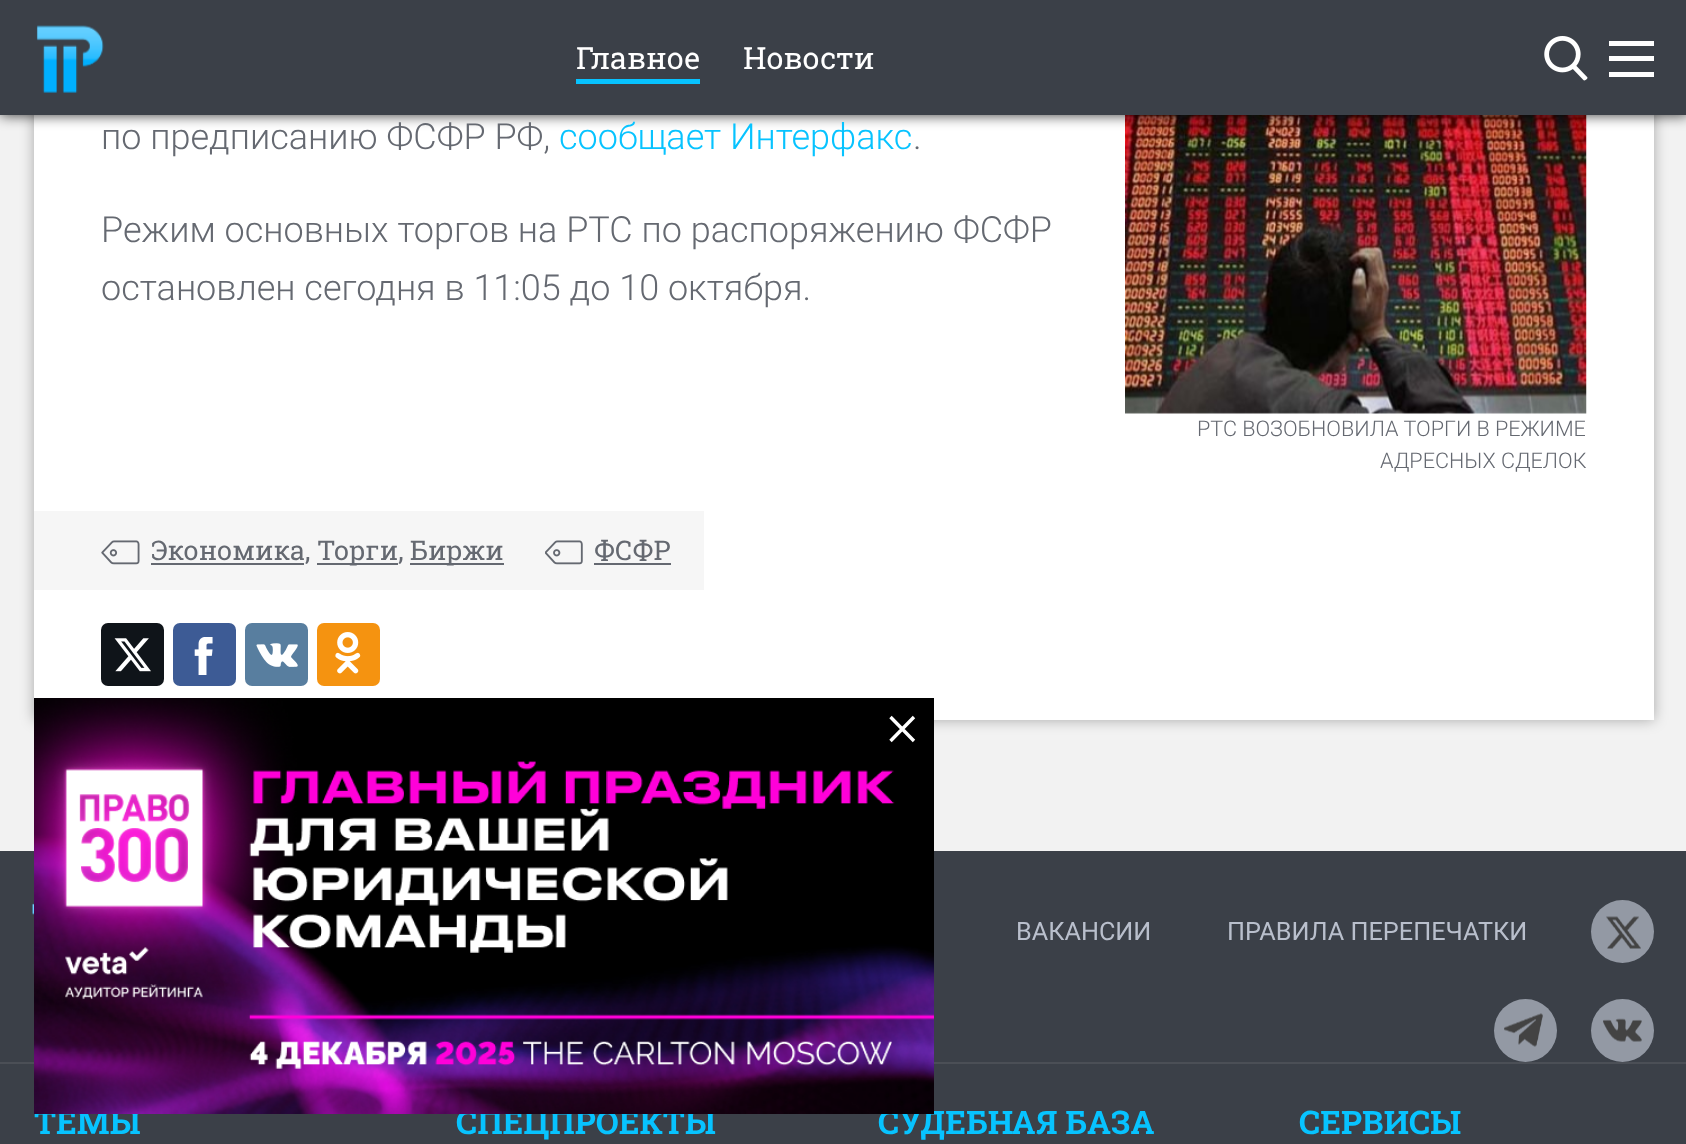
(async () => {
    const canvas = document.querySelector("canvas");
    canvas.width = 1686;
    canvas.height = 1144;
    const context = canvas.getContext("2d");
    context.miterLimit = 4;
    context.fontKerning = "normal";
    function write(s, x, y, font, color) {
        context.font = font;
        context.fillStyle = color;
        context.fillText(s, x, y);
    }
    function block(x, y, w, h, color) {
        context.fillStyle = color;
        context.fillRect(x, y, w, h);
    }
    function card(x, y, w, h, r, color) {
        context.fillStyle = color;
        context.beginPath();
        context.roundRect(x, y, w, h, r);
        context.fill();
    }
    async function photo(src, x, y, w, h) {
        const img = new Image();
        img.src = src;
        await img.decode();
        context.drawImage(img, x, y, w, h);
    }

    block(0, 0, 1686, 1144, "rgb(242, 242, 242)");
    context.fillStyle = "rgba(0, 0, 0, 0.3)";
    context.filter = "blur(7px)";
    context.beginPath();
    context.rect(34, -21, 1620, 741);
    context.fill();
    context.filter = "none";
    block(34, 115, 1620, 605, "rgb(255, 255, 255)");
    await photo("media/9.png", 1125, 115, 462, 299);
    context.fillStyle = "rgba(0, 0, 0, 0.8)";
    context.filter = "blur(7px)";
    context.beginPath();
    context.rect(0, 0, 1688, 115);
    context.fill();
    context.filter = "none";
    block(0, 0, 1686, 115, "rgb(59, 64, 72)");
    await photo("media/1.png", 36, 25, 68, 68);
    write("Главное", 576, 69, "30.5px Roboto Slab", "rgb(255, 255, 255)");
    block(576, 79, 124, 5, "rgb(7, 195, 255)");
    write("Новости", 743, 69, "30.5px Roboto Slab", "rgb(255, 255, 255)");
    await photo("media/2.png", 1544, 36, 44, 45);
    block(1609, 72, 45, 5, "rgb(254, 254, 254)");
    block(1609, 56, 45, 5, "rgb(254, 254, 254)");
    block(1609, 41, 45, 5, "rgb(254, 254, 254)");
    write("по предписанию ФСФР РФ,", 101, 149, "300 36px Roboto", "rgb(101, 105, 113)");
    write("сообщает Интерфакс", 559, 149, "300 36px Roboto", "rgb(7, 195, 255)");
    write(".", 913, 149, "300 36px Roboto", "rgb(101, 105, 113)");
    write("Режим основных торгов на РТС по распоряжению ФСФР", 101, 242, "300 36px Roboto", "rgb(101, 105, 113)");
    write("остановлен сегодня в 11:05 до 10 октября.", 101, 300, "300 36px Roboto", "rgb(101, 105, 113)");
    block(34, 511, 670, 79, "rgb(246, 246, 246)");
    await photo("media/3.png", 101, 540, 39, 25);
    block(151, 563, 153, 2, "rgb(101, 105, 113)");
    write("Экономика,", 151, 560, "27px Roboto Slab", "rgb(101, 105, 113)");
    block(317, 563, 81, 2, "rgb(101, 105, 113)");
    write("Торги,", 317, 560, "27px Roboto Slab", "rgb(101, 105, 113)");
    block(410, 563, 94, 2, "rgb(101, 105, 113)");
    write("Биржи", 410, 560, "27px Roboto Slab", "rgb(101, 105, 113)");
    await photo("media/4.png", 545, 540, 38, 25);
    write("ФСФР", 594, 560, "27px Roboto Slab", "rgb(101, 105, 113)");
    block(594, 563, 77, 2, "rgb(101, 105, 113)");
    card(101, 623, 63, 63, 7, "rgb(15, 20, 25)");
    await photo("media/5.png", 114, 638, 37, 34);
    card(173, 623, 63, 63, 7, "rgb(61, 91, 149)");
    await photo("media/6.png", 194, 637, 19, 38);
    card(245, 623, 63, 63, 7, "rgb(88, 126, 159)");
    await photo("media/7.png", 256, 643, 42, 24);
    card(317, 623, 63, 63, 7, "rgb(245, 147, 16)");
    await photo("media/8.png", 335, 632, 26, 42);
    write("РТС ВОЗОБНОВИЛА ТОРГИ В РЕЖИМЕ", 1197, 436, "300 21.6px Roboto", "rgb(101, 105, 113)");
    write("АДРЕСНЫХ СДЕЛОК", 1380, 468, "300 21.6px Roboto", "rgb(101, 105, 113)");
    block(0, 851, 1686, 293, "rgb(59, 64, 72)");
    block(0, 1062, 1686, 2, "rgb(75, 79, 86)");
    await photo("media/10.png", 32, 903, 2, 51);
    write("ВАКАНСИИ", 1016, 940, "25.25px Roboto", "rgb(185, 191, 204)");
    write("ПРАВИЛА ПЕРЕПЕЧАТКИ", 1227, 940, "25.25px Roboto", "rgb(185, 191, 204)");
    context.fillStyle = "rgb(147, 153, 164)";
    context.beginPath();
    context.arc(1622.5, 931.5, 31.5, 0, Math.PI * 2);
    context.fill();
    await photo("media/11.png", 1606, 916, 35, 33);
    context.beginPath();
    context.arc(1525.5, 1030.5, 31.5, 0, Math.PI * 2);
    context.fill();
    await photo("media/12.png", 1504, 1013, 39, 34);
    context.beginPath();
    context.arc(1622.5, 1030.5, 31.5, 0, Math.PI * 2);
    context.fill();
    await photo("media/13.png", 1603, 1018, 39, 24);
    write("ТЕМЫ", 34, 1134, "bold 32.5px Roboto Slab", "rgb(7, 195, 255)");
    write("СПЕЦПРОЕКТЫ", 456, 1134, "bold 32.5px Roboto Slab", "rgb(7, 195, 255)");
    write("СУДЕБНАЯ БАЗА", 878, 1134, "bold 32.5px Roboto Slab", "rgb(7, 195, 255)");
    write("СЕРВИСЫ", 1299, 1134, "bold 32.5px Roboto Slab", "rgb(7, 195, 255)");
    await photo("media/14.png", 34, 698, 900, 416);
    context.beginPath();
    context.moveTo(890.5, 717);
    context.lineTo(914, 741);
    context.moveTo(914, 717);
    context.lineTo(890.5, 741);
    context.strokeStyle = "rgb(255, 255, 255)";
    context.lineWidth = 3.4;
    context.stroke();
})();
